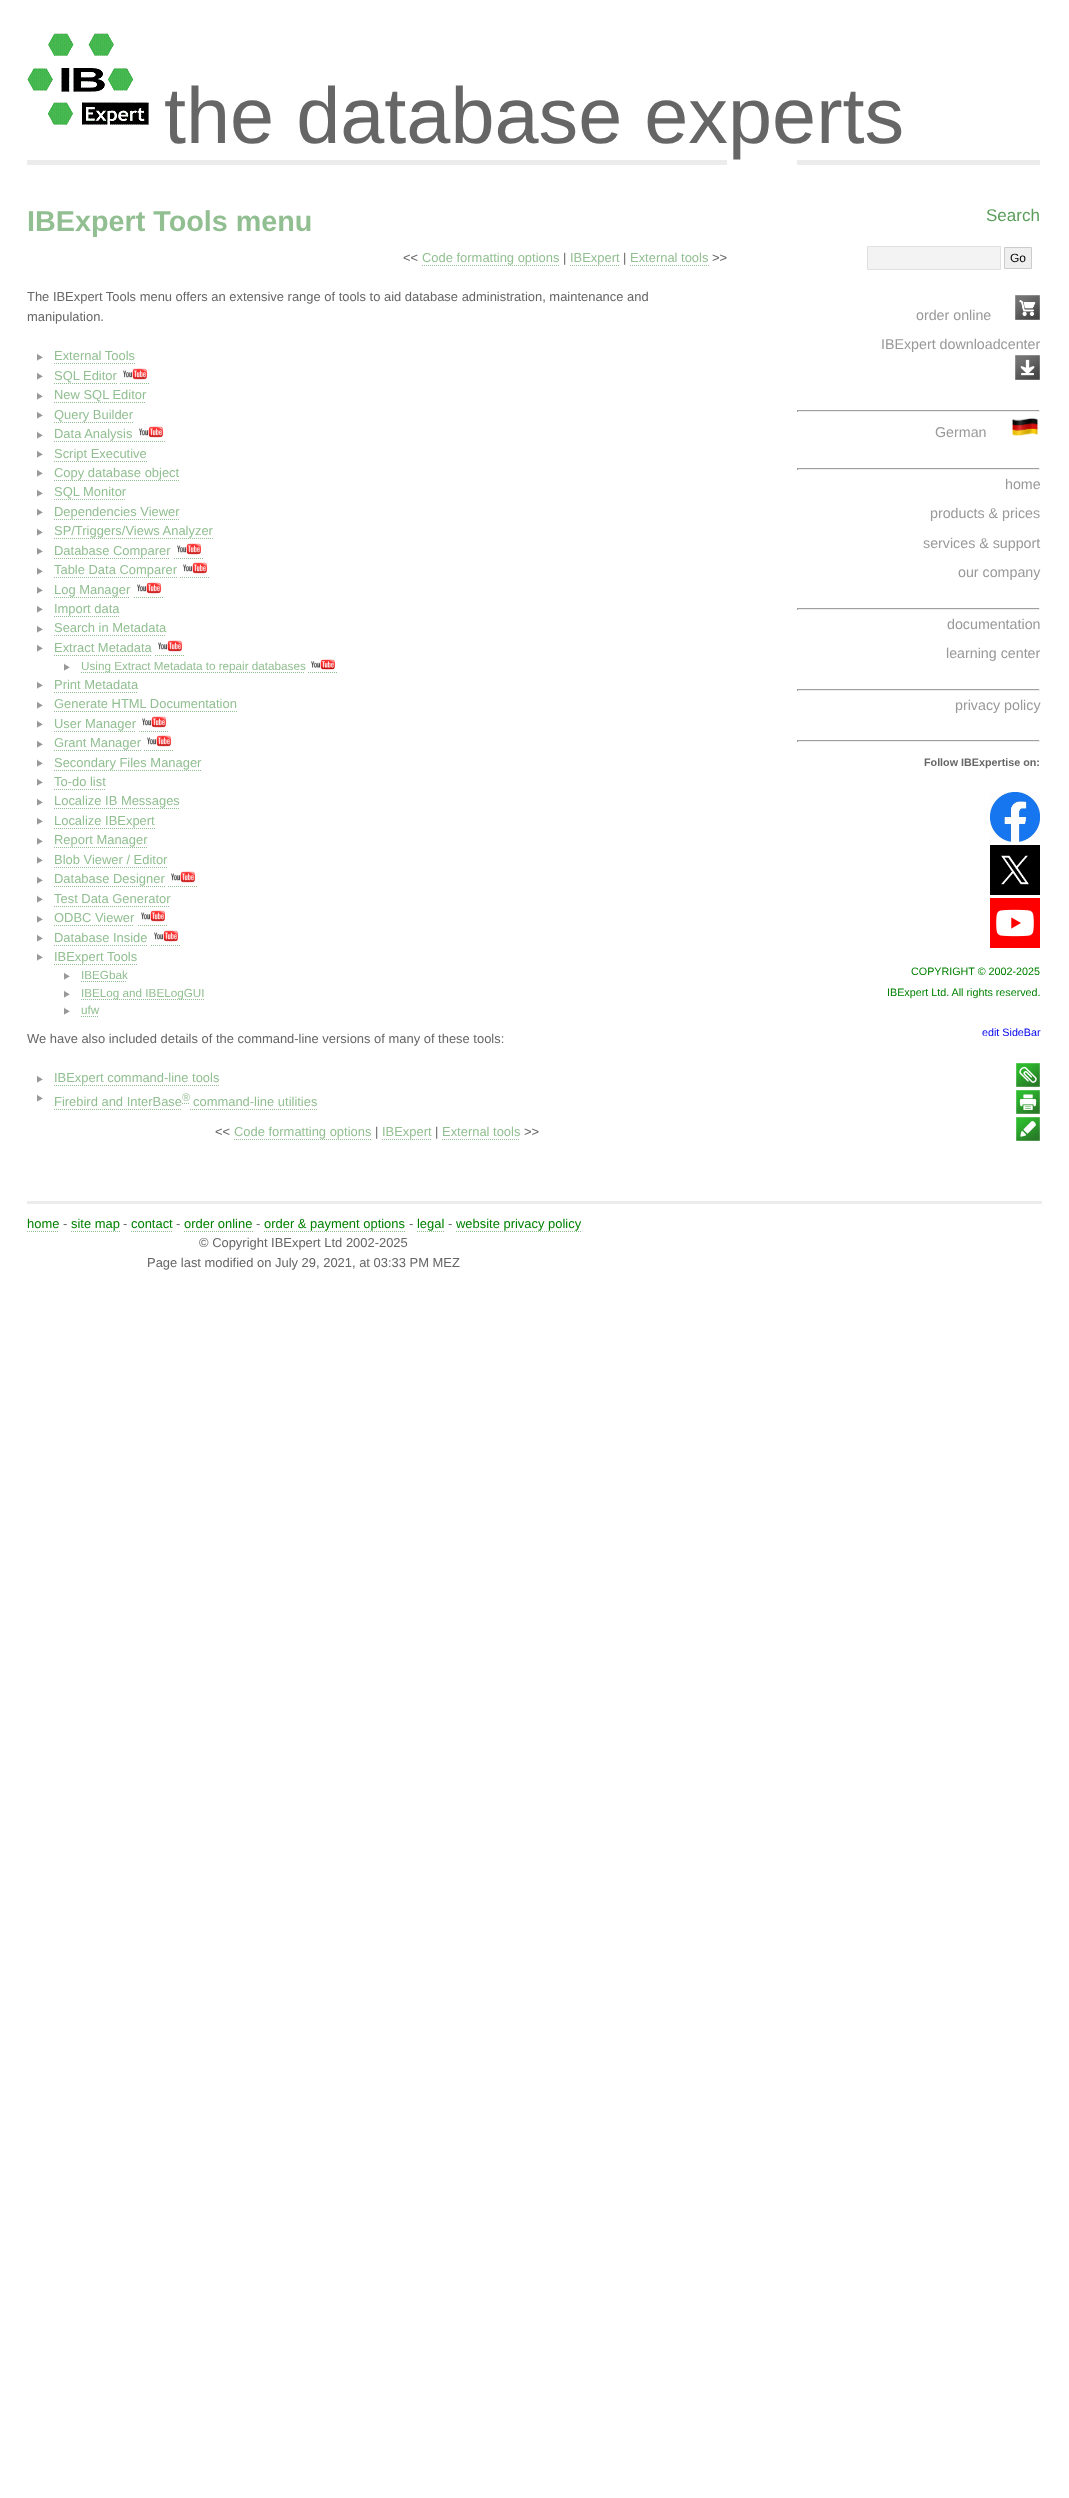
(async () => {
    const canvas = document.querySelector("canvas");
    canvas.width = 1069;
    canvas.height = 2498;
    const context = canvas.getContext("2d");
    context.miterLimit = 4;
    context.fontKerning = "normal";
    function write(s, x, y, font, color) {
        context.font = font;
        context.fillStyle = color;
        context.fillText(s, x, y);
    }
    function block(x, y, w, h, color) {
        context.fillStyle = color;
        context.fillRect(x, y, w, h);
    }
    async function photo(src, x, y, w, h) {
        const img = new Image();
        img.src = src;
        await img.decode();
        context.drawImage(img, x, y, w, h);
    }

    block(0, 0, 1069, 2498, "rgb(255, 255, 255)");
    await photo("media/1.png", 27, 33, 122, 92);
    write("the database experts", 164, 143, "79.25px Liberation Sans", "rgb(102, 102, 102)");
    block(27, 160, 700, 5, "rgb(236, 236, 236)");
    write("IBExpert Tools menu", 27, 231, "bold 28.75px Liberation Sans", "rgb(146, 191, 146)");
    write("<<", 403, 262, "12.95px Liberation Sans", "rgb(102, 102, 102)");
    write("Code formatting options", 422, 262, "12.95px Liberation Sans", "rgb(146, 191, 146)");
    context.beginPath();
    context.moveTo(422, 265.5);
    context.lineTo(559, 265.5);
    context.strokeStyle = "rgb(146, 191, 146)";
    context.setLineDash([1, 1]);
    context.stroke();
    write("|", 563, 262, "12.95px Liberation Sans", "rgb(102, 102, 102)");
    write("IBExpert", 570, 262, "12.95px Liberation Sans", "rgb(146, 191, 146)");
    context.beginPath();
    context.moveTo(570, 265.5);
    context.lineTo(620, 265.5);
    context.stroke();
    write("|", 623, 262, "12.95px Liberation Sans", "rgb(102, 102, 102)");
    write("External tools", 630, 262, "12.95px Liberation Sans", "rgb(146, 191, 146)");
    context.beginPath();
    context.moveTo(630, 265.5);
    context.lineTo(709, 265.5);
    context.stroke();
    write(">>", 712, 262, "12.95px Liberation Sans", "rgb(102, 102, 102)");
    write("The IBExpert Tools menu offers an extensive range of tools to aid database administration, maintenance and", 27, 301, "12.95px Liberation Sans", "rgb(102, 102, 102)");
    write("manipulation.", 27, 321, "12.95px Liberation Sans", "rgb(102, 102, 102)");
    await photo("media/2.png", 37, 353, 6, 8);
    write("External Tools", 54, 360, "12.95px Liberation Sans", "rgb(146, 191, 146)");
    context.beginPath();
    context.moveTo(54, 363.5);
    context.lineTo(135, 363.5);
    context.stroke();
    await photo("media/2.png", 37, 372, 6, 8);
    write("SQL Editor", 54, 380, "12.95px Liberation Sans", "rgb(146, 191, 146)");
    context.beginPath();
    context.moveTo(54, 383.5);
    context.lineTo(117, 383.5);
    context.stroke();
    await photo("media/3.png", 123, 368, 25, 12);
    context.beginPath();
    context.moveTo(120, 383.5);
    context.lineTo(150, 383.5);
    context.stroke();
    await photo("media/2.png", 37, 392, 6, 8);
    write("New SQL Editor", 54, 399, "12.95px Liberation Sans", "rgb(146, 191, 146)");
    context.beginPath();
    context.moveTo(54, 402.5);
    context.lineTo(146, 402.5);
    context.stroke();
    await photo("media/2.png", 37, 411, 6, 8);
    write("Query Builder", 54, 419, "12.95px Liberation Sans", "rgb(146, 191, 146)");
    context.beginPath();
    context.moveTo(54, 422.5);
    context.lineTo(133, 422.5);
    context.stroke();
    await photo("media/2.png", 37, 431, 6, 8);
    write("Data Analysis", 54, 438, "12.95px Liberation Sans", "rgb(146, 191, 146)");
    context.beginPath();
    context.moveTo(54, 441.5);
    context.lineTo(136, 441.5);
    context.stroke();
    await photo("media/4.png", 139, 426, 25, 12);
    context.beginPath();
    context.moveTo(136, 441.5);
    context.lineTo(166, 441.5);
    context.stroke();
    await photo("media/2.png", 37, 450, 6, 8);
    write("Script Executive", 54, 458, "12.95px Liberation Sans", "rgb(146, 191, 146)");
    context.beginPath();
    context.moveTo(54, 461.5);
    context.lineTo(147, 461.5);
    context.stroke();
    await photo("media/2.png", 37, 469, 6, 8);
    write("Copy database object", 54, 477, "12.95px Liberation Sans", "rgb(146, 191, 146)");
    context.beginPath();
    context.moveTo(54, 480.5);
    context.lineTo(179, 480.5);
    context.stroke();
    await photo("media/2.png", 37, 489, 6, 8);
    write("SQL Monitor", 54, 496, "12.95px Liberation Sans", "rgb(146, 191, 146)");
    context.beginPath();
    context.moveTo(54, 499.5);
    context.lineTo(126, 499.5);
    context.stroke();
    await photo("media/2.png", 37, 508, 6, 8);
    write("Dependencies Viewer", 54, 516, "12.95px Liberation Sans", "rgb(146, 191, 146)");
    context.beginPath();
    context.moveTo(54, 519.5);
    context.lineTo(180, 519.5);
    context.stroke();
    await photo("media/2.png", 37, 528, 6, 8);
    write("SP/Triggers/Views Analyzer", 54, 535, "12.95px Liberation Sans", "rgb(146, 191, 146)");
    context.beginPath();
    context.moveTo(54, 538.5);
    context.lineTo(213, 538.5);
    context.stroke();
    await photo("media/2.png", 37, 547, 6, 8);
    write("Database Comparer", 54, 555, "12.95px Liberation Sans", "rgb(146, 191, 146)");
    context.beginPath();
    context.moveTo(54, 558.5);
    context.lineTo(170, 558.5);
    context.stroke();
    await photo("media/3.png", 177, 543, 25, 12);
    context.beginPath();
    context.moveTo(174, 558.5);
    context.lineTo(204, 558.5);
    context.stroke();
    await photo("media/2.png", 37, 567, 6, 8);
    write("Table Data Comparer", 54, 574, "12.95px Liberation Sans", "rgb(146, 191, 146)");
    context.beginPath();
    context.moveTo(54, 577.5);
    context.lineTo(177, 577.5);
    context.stroke();
    await photo("media/3.png", 183, 562, 25, 12);
    context.beginPath();
    context.moveTo(180, 577.5);
    context.lineTo(210, 577.5);
    context.stroke();
    await photo("media/2.png", 37, 586, 6, 8);
    write("Log Manager", 54, 594, "12.95px Liberation Sans", "rgb(146, 191, 146)");
    context.beginPath();
    context.moveTo(54, 597.5);
    context.lineTo(130, 597.5);
    context.stroke();
    await photo("media/3.png", 137, 582, 25, 12);
    context.beginPath();
    context.moveTo(134, 597.5);
    context.lineTo(164, 597.5);
    context.stroke();
    await photo("media/2.png", 37, 605, 6, 8);
    write("Import data", 54, 613, "12.95px Liberation Sans", "rgb(146, 191, 146)");
    context.beginPath();
    context.moveTo(54, 616.5);
    context.lineTo(119, 616.5);
    context.stroke();
    await photo("media/2.png", 37, 625, 6, 8);
    write("Search in Metadata", 54, 632, "12.95px Liberation Sans", "rgb(146, 191, 146)");
    context.beginPath();
    context.moveTo(54, 635.5);
    context.lineTo(166, 635.5);
    context.stroke();
    await photo("media/2.png", 37, 644, 6, 8);
    write("Extract Metadata", 54, 652, "12.95px Liberation Sans", "rgb(146, 191, 146)");
    context.beginPath();
    context.moveTo(54, 655.5);
    context.lineTo(152, 655.5);
    context.stroke();
    await photo("media/4.png", 158, 640, 25, 12);
    context.beginPath();
    context.moveTo(155, 655.5);
    context.lineTo(185, 655.5);
    context.stroke();
    await photo("media/2.png", 64, 663, 6, 8);
    context.beginPath();
    context.moveTo(81, 672.5);
    context.lineTo(305, 672.5);
    context.stroke();
    write("Using Extract Metadata to repair databases", 81, 670, "11.7px Liberation Sans", "rgb(146, 191, 146)");
    await photo("media/5.png", 311, 659, 25, 11);
    context.beginPath();
    context.moveTo(308, 672.5);
    context.lineTo(338, 672.5);
    context.stroke();
    await photo("media/2.png", 37, 681, 6, 8);
    write("Print Metadata", 54, 689, "12.95px Liberation Sans", "rgb(146, 191, 146)");
    context.beginPath();
    context.moveTo(54, 692.5);
    context.lineTo(138, 692.5);
    context.stroke();
    await photo("media/2.png", 37, 701, 6, 8);
    write("Generate HTML Documentation", 54, 708, "12.95px Liberation Sans", "rgb(146, 191, 146)");
    context.beginPath();
    context.moveTo(54, 711.5);
    context.lineTo(237, 711.5);
    context.stroke();
    await photo("media/2.png", 37, 720, 6, 8);
    write("User Manager", 54, 728, "12.95px Liberation Sans", "rgb(146, 191, 146)");
    context.beginPath();
    context.moveTo(54, 731.5);
    context.lineTo(136, 731.5);
    context.stroke();
    await photo("media/3.png", 142, 716, 25, 12);
    context.beginPath();
    context.moveTo(139, 731.5);
    context.lineTo(169, 731.5);
    context.stroke();
    await photo("media/2.png", 37, 740, 6, 8);
    write("Grant Manager", 54, 747, "12.95px Liberation Sans", "rgb(146, 191, 146)");
    context.beginPath();
    context.moveTo(54, 750.5);
    context.lineTo(141, 750.5);
    context.stroke();
    await photo("media/4.png", 147, 735, 25, 12);
    context.beginPath();
    context.moveTo(144, 750.5);
    context.lineTo(174, 750.5);
    context.stroke();
    await photo("media/2.png", 37, 759, 6, 8);
    write("Secondary Files Manager", 54, 767, "12.95px Liberation Sans", "rgb(146, 191, 146)");
    context.beginPath();
    context.moveTo(54, 770.5);
    context.lineTo(201, 770.5);
    context.stroke();
    await photo("media/2.png", 37, 778, 6, 8);
    write("To-do list", 54, 786, "12.95px Liberation Sans", "rgb(146, 191, 146)");
    context.beginPath();
    context.moveTo(54, 789.5);
    context.lineTo(106, 789.5);
    context.stroke();
    await photo("media/2.png", 37, 798, 6, 8);
    write("Localize IB Messages", 54, 805, "12.95px Liberation Sans", "rgb(146, 191, 146)");
    context.beginPath();
    context.moveTo(54, 808.5);
    context.lineTo(180, 808.5);
    context.stroke();
    await photo("media/2.png", 37, 817, 6, 8);
    write("Localize IBExpert", 54, 825, "12.95px Liberation Sans", "rgb(146, 191, 146)");
    context.beginPath();
    context.moveTo(54, 828.5);
    context.lineTo(155, 828.5);
    context.stroke();
    await photo("media/2.png", 37, 837, 6, 8);
    write("Report Manager", 54, 844, "12.95px Liberation Sans", "rgb(146, 191, 146)");
    context.beginPath();
    context.moveTo(54, 847.5);
    context.lineTo(147, 847.5);
    context.stroke();
    await photo("media/2.png", 37, 856, 6, 8);
    write("Blob Viewer / Editor", 54, 864, "12.95px Liberation Sans", "rgb(146, 191, 146)");
    context.beginPath();
    context.moveTo(54, 867.5);
    context.lineTo(167, 867.5);
    context.stroke();
    await photo("media/2.png", 37, 876, 6, 8);
    write("Database Designer", 54, 883, "12.95px Liberation Sans", "rgb(146, 191, 146)");
    context.beginPath();
    context.moveTo(54, 886.5);
    context.lineTo(165, 886.5);
    context.stroke();
    await photo("media/3.png", 171, 871, 25, 12);
    context.beginPath();
    context.moveTo(168, 886.5);
    context.lineTo(198, 886.5);
    context.stroke();
    await photo("media/2.png", 37, 895, 6, 8);
    write("Test Data Generator", 54, 903, "12.95px Liberation Sans", "rgb(146, 191, 146)");
    context.beginPath();
    context.moveTo(54, 906.5);
    context.lineTo(170, 906.5);
    context.stroke();
    await photo("media/2.png", 37, 915, 6, 8);
    write("ODBC Viewer", 54, 922, "12.95px Liberation Sans", "rgb(146, 191, 146)");
    context.beginPath();
    context.moveTo(54, 925.5);
    context.lineTo(134, 925.5);
    context.stroke();
    await photo("media/4.png", 141, 910, 25, 12);
    context.beginPath();
    context.moveTo(138, 925.5);
    context.lineTo(168, 925.5);
    context.stroke();
    await photo("media/2.png", 37, 934, 6, 8);
    write("Database Inside", 54, 942, "12.95px Liberation Sans", "rgb(146, 191, 146)");
    context.beginPath();
    context.moveTo(54, 945.5);
    context.lineTo(147, 945.5);
    context.stroke();
    await photo("media/3.png", 154, 930, 25, 12);
    context.beginPath();
    context.moveTo(151, 945.5);
    context.lineTo(181, 945.5);
    context.stroke();
    await photo("media/2.png", 37, 953, 6, 8);
    write("IBExpert Tools", 54, 961, "12.95px Liberation Sans", "rgb(146, 191, 146)");
    context.beginPath();
    context.moveTo(54, 964.5);
    context.lineTo(137, 964.5);
    context.stroke();
    await photo("media/2.png", 64, 972, 6, 8);
    write("IBEGbak", 81, 979, "11.7px Liberation Sans", "rgb(146, 191, 146)");
    context.beginPath();
    context.moveTo(81, 981.5);
    context.lineTo(127, 981.5);
    context.stroke();
    await photo("media/2.png", 64, 990, 6, 8);
    context.beginPath();
    context.moveTo(81, 999.5);
    context.lineTo(204, 999.5);
    context.stroke();
    write("IBELog and IBELogGUI", 81, 997, "11.7px Liberation Sans", "rgb(146, 191, 146)");
    await photo("media/2.png", 64, 1007, 6, 8);
    write("ufw", 81, 1014, "11.7px Liberation Sans", "rgb(146, 191, 146)");
    context.beginPath();
    context.moveTo(81, 1016.5);
    context.lineTo(99, 1016.5);
    context.stroke();
    write("We have also included details of the command-line versions of many of these tools:", 27, 1043, "12.95px Liberation Sans", "rgb(102, 102, 102)");
    await photo("media/2.png", 37, 1075, 6, 8);
    write("IBExpert command-line tools", 54, 1082, "12.95px Liberation Sans", "rgb(146, 191, 146)");
    context.beginPath();
    context.moveTo(54, 1085.5);
    context.lineTo(219, 1085.5);
    context.stroke();
    await photo("media/2.png", 37, 1094, 6, 8);
    write("Firebird and InterBase", 54, 1106, "12.95px Liberation Sans", "rgb(146, 191, 146)");
    context.beginPath();
    context.moveTo(54, 1109.5);
    context.lineTo(182, 1109.5);
    context.stroke();
    context.beginPath();
    context.moveTo(182, 1103.5);
    context.lineTo(190, 1103.5);
    context.stroke();
    write("®", 182, 1101, "11px Liberation Sans", "rgb(146, 191, 146)");
    write("command-line utilities", 193, 1106, "12.95px Liberation Sans", "rgb(146, 191, 146)");
    context.beginPath();
    context.moveTo(190, 1109.5);
    context.lineTo(318, 1109.5);
    context.stroke();
    write("<<", 215, 1136, "12.95px Liberation Sans", "rgb(102, 102, 102)");
    write("Code formatting options", 234, 1136, "12.95px Liberation Sans", "rgb(146, 191, 146)");
    context.beginPath();
    context.moveTo(234, 1139.5);
    context.lineTo(371, 1139.5);
    context.stroke();
    write("|", 375, 1136, "12.95px Liberation Sans", "rgb(102, 102, 102)");
    write("IBExpert", 382, 1136, "12.95px Liberation Sans", "rgb(146, 191, 146)");
    context.beginPath();
    context.moveTo(382, 1139.5);
    context.lineTo(431, 1139.5);
    context.stroke();
    write("|", 435, 1136, "12.95px Liberation Sans", "rgb(102, 102, 102)");
    write("External tools", 442, 1136, "12.95px Liberation Sans", "rgb(146, 191, 146)");
    context.beginPath();
    context.moveTo(442, 1139.5);
    context.lineTo(520, 1139.5);
    context.stroke();
    write(">>", 524, 1136, "12.95px Liberation Sans", "rgb(102, 102, 102)");
    block(797, 160, 243, 5, "rgb(236, 236, 236)");
    write("Search", 986, 221, "17px Liberation Sans", "rgb(91, 158, 91)");
    context.fillStyle = "rgb(243, 243, 243)";
    context.beginPath();
    context.rect(867.5, 246.5, 133, 23);
    context.fill();
    context.strokeStyle = "rgb(224, 224, 224)";
    context.setLineDash([]);
    context.stroke();
    context.fillStyle = "rgb(239, 239, 239)";
    context.beginPath();
    context.rect(1004.5, 247.5, 27, 21);
    context.fill();
    context.strokeStyle = "rgb(204, 204, 204)";
    context.stroke();
    write("Go", 1010, 262, "12px Liberation Sans", "rgb(0, 0, 0)");
    write("order online", 916, 320, "14.25px Liberation Sans", "rgb(153, 153, 153)");
    await photo("media/6.png", 1015, 295, 25, 25);
    write("IBExpert downloadcenter", 881, 349, "14.25px Liberation Sans", "rgb(153, 153, 153)");
    await photo("media/7.png", 1015, 355, 25, 25);
    block(797, 410, 243, 1, "rgb(159, 159, 159)");
    block(1039, 410, 1, 2, "rgb(238, 238, 238)");
    block(797, 411, 243, 1, "rgb(238, 238, 238)");
    block(797, 410, 1, 2, "rgb(159, 159, 159)");
    write("German", 935, 437, "14.25px Liberation Sans", "rgb(153, 153, 153)");
    await photo("media/8.png", 1012, 418, 27, 18);
    block(797, 468, 243, 1, "rgb(159, 159, 159)");
    block(1039, 468, 1, 2, "rgb(238, 238, 238)");
    block(797, 469, 243, 1, "rgb(238, 238, 238)");
    block(797, 468, 1, 2, "rgb(159, 159, 159)");
    write("home", 1005, 489, "14.25px Liberation Sans", "rgb(153, 153, 153)");
    write("products & prices", 930, 518, "14.25px Liberation Sans", "rgb(153, 153, 153)");
    write("services & support", 923, 548, "14.25px Liberation Sans", "rgb(153, 153, 153)");
    write("our company", 958, 577, "14.25px Liberation Sans", "rgb(153, 153, 153)");
    block(797, 608, 243, 1, "rgb(159, 159, 159)");
    block(1039, 608, 1, 2, "rgb(238, 238, 238)");
    block(797, 609, 243, 1, "rgb(238, 238, 238)");
    block(797, 608, 1, 2, "rgb(159, 159, 159)");
    write("documentation", 947, 629, "14.25px Liberation Sans", "rgb(153, 153, 153)");
    write("learning center", 946, 658, "14.25px Liberation Sans", "rgb(153, 153, 153)");
    block(797, 689, 243, 1, "rgb(159, 159, 159)");
    block(1039, 689, 1, 2, "rgb(238, 238, 238)");
    block(797, 690, 243, 1, "rgb(238, 238, 238)");
    block(797, 689, 1, 2, "rgb(159, 159, 159)");
    write("privacy policy", 955, 710, "14.25px Liberation Sans", "rgb(153, 153, 153)");
    block(797, 740, 243, 1, "rgb(159, 159, 159)");
    block(1039, 740, 1, 2, "rgb(238, 238, 238)");
    block(797, 741, 243, 1, "rgb(238, 238, 238)");
    block(797, 740, 1, 2, "rgb(159, 159, 159)");
    write("Follow IBExpertise on:", 924, 766, "bold 10.75px Liberation Sans", "rgb(102, 102, 102)");
    await photo("media/9.png", 990, 792, 50, 50);
    await photo("media/10.png", 990, 845, 50, 50);
    await photo("media/11.png", 990, 898, 50, 50);
    write("COPYRIGHT © 2002-2025", 911, 975, "10.75px Liberation Sans", "rgb(0, 128, 0)");
    write("IBExpert Ltd. All rights reserved.", 887, 996, "10.75px Liberation Sans", "rgb(0, 128, 0)");
    write("edit SideBar", 982, 1036, "10.75px Liberation Sans", "rgb(0, 0, 238)");
    await photo("media/12.png", 1016, 1063, 24, 24);
    await photo("media/13.png", 1016, 1090, 24, 24);
    await photo("media/14.png", 1016, 1117, 24, 24);
    block(27, 1201, 1015, 3, "rgb(236, 236, 236)");
    write("home", 27, 1228, "12.95px Liberation Sans", "rgb(0, 128, 0)");
    context.beginPath();
    context.moveTo(27, 1231.5);
    context.lineTo(59, 1231.5);
    context.strokeStyle = "rgb(146, 191, 146)";
    context.setLineDash([1, 1]);
    context.stroke();
    write("-", 63, 1228, "12.95px Liberation Sans", "rgb(102, 102, 102)");
    write("site map", 71, 1228, "12.95px Liberation Sans", "rgb(0, 128, 0)");
    context.beginPath();
    context.moveTo(71, 1231.5);
    context.lineTo(120, 1231.5);
    context.stroke();
    write("-", 123, 1228, "12.95px Liberation Sans", "rgb(102, 102, 102)");
    write("contact", 131, 1228, "12.95px Liberation Sans", "rgb(0, 128, 0)");
    context.beginPath();
    context.moveTo(131, 1231.5);
    context.lineTo(173, 1231.5);
    context.stroke();
    write("-", 176, 1228, "12.95px Liberation Sans", "rgb(102, 102, 102)");
    write("order online", 184, 1228, "12.95px Liberation Sans", "rgb(0, 128, 0)");
    context.beginPath();
    context.moveTo(184, 1231.5);
    context.lineTo(253, 1231.5);
    context.stroke();
    write("-", 256, 1228, "12.95px Liberation Sans", "rgb(102, 102, 102)");
    write("order & payment options", 264, 1228, "12.95px Liberation Sans", "rgb(0, 128, 0)");
    context.beginPath();
    context.moveTo(264, 1231.5);
    context.lineTo(405, 1231.5);
    context.stroke();
    write("-", 409, 1228, "12.95px Liberation Sans", "rgb(102, 102, 102)");
    write("legal", 417, 1228, "12.95px Liberation Sans", "rgb(0, 128, 0)");
    context.beginPath();
    context.moveTo(417, 1231.5);
    context.lineTo(444, 1231.5);
    context.stroke();
    write("-", 448, 1228, "12.95px Liberation Sans", "rgb(102, 102, 102)");
    write("website privacy policy", 456, 1228, "12.95px Liberation Sans", "rgb(0, 128, 0)");
    context.beginPath();
    context.moveTo(456, 1231.5);
    context.lineTo(581, 1231.5);
    context.stroke();
    write("© Copyright IBExpert Ltd 2002-2025", 199, 1247, "12.95px Liberation Sans", "rgb(102, 102, 102)");
    write("Page last modified on July 29, 2021, at 03:33 PM MEZ", 147, 1267, "12.95px Liberation Sans", "rgb(102, 102, 102)");
})();
